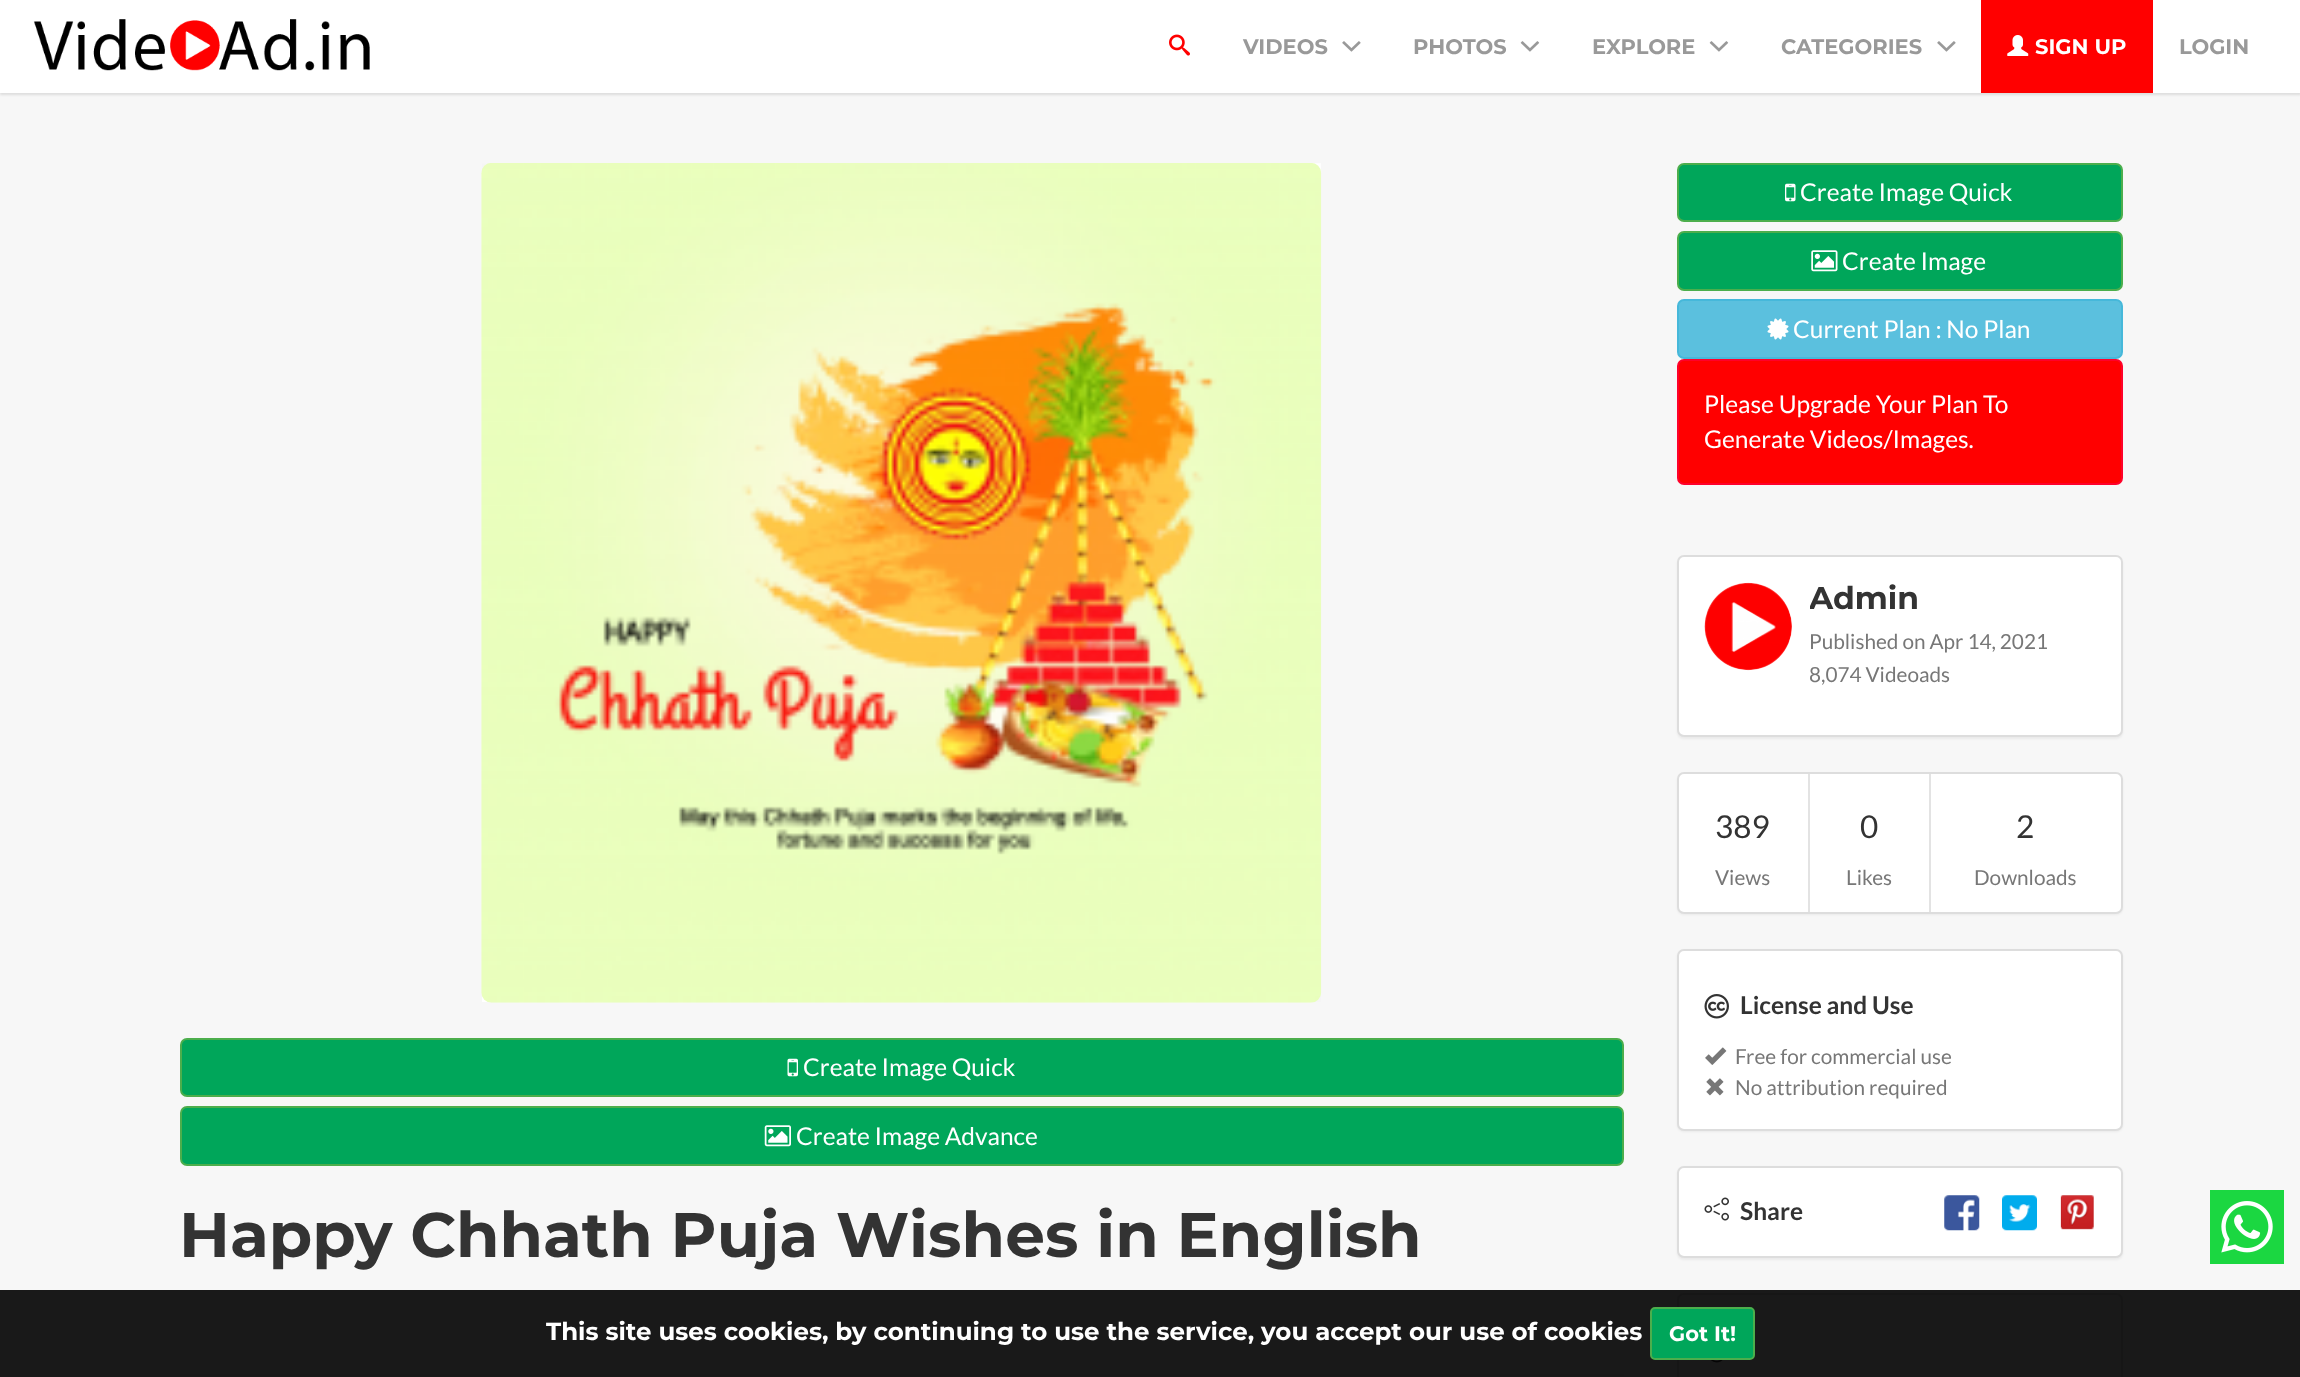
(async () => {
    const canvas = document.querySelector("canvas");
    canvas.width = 2300;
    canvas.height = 1377;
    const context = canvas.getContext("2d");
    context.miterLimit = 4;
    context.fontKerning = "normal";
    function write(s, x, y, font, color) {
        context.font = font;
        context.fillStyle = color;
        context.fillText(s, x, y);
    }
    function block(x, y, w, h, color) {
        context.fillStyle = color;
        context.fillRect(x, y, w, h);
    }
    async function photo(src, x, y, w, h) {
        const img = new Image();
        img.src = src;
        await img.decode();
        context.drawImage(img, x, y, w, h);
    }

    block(0, 0, 2300, 1377, "rgb(247, 247, 247)");
    context.fillStyle = "rgb(221, 221, 221)";
    context.filter = "blur(1px)";
    context.beginPath();
    context.rect(0, 2, 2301, 93);
    context.fill();
    context.filter = "none";
    block(0, 0, 2300, 93, "rgb(255, 255, 255)");
    await photo("media/1.png", 33, 19, 337, 52);
    await photo("media/2.png", 1169, 34, 21, 22);
    write("VIDEOS", 1243, 54, "100 21px Montserrat", "rgb(153, 153, 153)");
    await photo("media/3.png", 1342, 41, 19, 11);
    write("PHOTOS", 1413, 54, "100 21px Montserrat", "rgb(153, 153, 153)");
    await photo("media/4.png", 1520, 41, 20, 11);
    write("EXPLORE", 1592, 54, "100 21px Montserrat", "rgb(153, 153, 153)");
    await photo("media/4.png", 1709, 41, 20, 11);
    write("CATEGORIES", 1781, 54, "100 21px Montserrat", "rgb(153, 153, 153)");
    await photo("media/3.png", 1937, 41, 19, 11);
    block(1981, 0, 172, 93, "rgb(255, 0, 0)");
    await photo("media/5.png", 2007, 35, 22, 21);
    write("SIGN UP", 2035, 54, "100 21px Montserrat", "rgb(255, 255, 255)");
    write("LOGIN", 2179, 54, "100 21px Montserrat", "rgb(153, 153, 153)");
    await photo("media/6.png", 482, 163, 839, 839);
    await photo("media/7.png", 481, 163, 841, 840);
    context.fillStyle = "rgb(0, 166, 90)";
    context.beginPath();
    context.roundRect(181, 1039, 1442, 57, 6);
    context.fill();
    context.strokeStyle = "rgb(76, 174, 76)";
    context.lineWidth = 2;
    context.stroke();
    await photo("media/8.png", 787, 1058, 11, 19);
    write("Create Image Quick", 803, 1076, "24.5px Lato", "rgb(255, 255, 255)");
    context.fillStyle = "rgb(0, 166, 90)";
    context.beginPath();
    context.roundRect(181, 1107, 1442, 58, 6);
    context.fill();
    context.stroke();
    await photo("media/9.png", 764, 1125, 27, 22);
    write("Create Image Advance", 796, 1145, "24.5px Lato", "rgb(255, 255, 255)");
    write("Happy Chhath Puja Wishes in English", 179, 1257, "100 63px Montserrat", "rgb(51, 51, 51)");
    block(180, 1374, 1444, 2, "rgb(238, 238, 238)");
    context.fillStyle = "rgb(0, 166, 90)";
    context.beginPath();
    context.roundRect(1678, 164, 444, 57, 6);
    context.fill();
    context.stroke();
    await photo("media/10.png", 1785, 183, 11, 19);
    write("Create Image Quick", 1800, 201, "24.5px Lato", "rgb(255, 255, 255)");
    context.fillStyle = "rgb(0, 166, 90)";
    context.beginPath();
    context.roundRect(1678, 232, 444, 58, 6);
    context.fill();
    context.stroke();
    await photo("media/11.png", 1811, 250, 27, 22);
    write("Create Image", 1842, 270, "24.5px Lato", "rgb(255, 255, 255)");
    context.fillStyle = "rgb(91, 192, 222)";
    context.beginPath();
    context.roundRect(1678, 300, 444, 58, 6);
    context.fill();
    context.strokeStyle = "rgb(70, 184, 218)";
    context.stroke();
    await photo("media/12.png", 1767, 318, 22, 22);
    write("Current Plan : No Plan", 1793, 338, "24.5px Lato", "rgb(255, 255, 255)");
    context.fillStyle = "rgb(255, 0, 0)";
    context.beginPath();
    context.roundRect(1678, 360, 444, 124, 6);
    context.fill();
    context.strokeStyle = "rgb(255, 1, 42)";
    context.stroke();
    write("Please Upgrade Your Plan To", 1704, 413, "24.5px Lato", "rgb(255, 255, 255)");
    write("Generate Videos/Images.", 1704, 448, "24.5px Lato", "rgb(255, 255, 255)");
    context.fillStyle = "rgba(0, 0, 0, 0.05)";
    context.filter = "blur(1px)";
    context.beginPath();
    context.roundRect(1677, 557, 446, 182, 7);
    context.fill();
    context.filter = "none";
    context.fillStyle = "rgb(255, 255, 255)";
    context.beginPath();
    context.roundRect(1678, 556, 444, 180, 6);
    context.fill();
    context.strokeStyle = "rgb(221, 221, 221)";
    context.stroke();
    await photo("media/13.png", 1704, 582, 88, 89);
    context.save();
    context.beginPath();
    context.rect(1810, 583, 285, 126);
    context.clip();
    write("Admin", 1809, 609, "100 31.5px Montserrat", "rgb(51, 51, 51)");
    context.restore();
    write("Published on Apr 14, 2021", 1809, 649, "20.75px Lato", "rgb(119, 119, 119)");
    context.save();
    context.beginPath();
    context.rect(1810, 583, 285, 126);
    context.clip();
    write("8,074 Videoads", 1809, 682, "20.75px Lato", "rgb(119, 119, 119)");
    context.restore();
    context.fillStyle = "rgba(0, 0, 0, 0.05)";
    context.filter = "blur(1px)";
    context.beginPath();
    context.roundRect(1677, 774, 446, 141, 7);
    context.fill();
    context.filter = "none";
    context.fillStyle = "rgb(255, 255, 255)";
    context.beginPath();
    context.roundRect(1678, 773, 444, 140, 6);
    context.fill();
    context.stroke();
    block(1808, 774, 2, 138, "rgb(227, 227, 227)");
    write("389", 1715, 838, "31.5px Lato", "rgb(51, 51, 51)");
    write("Views", 1715, 885, "20.75px Lato", "rgb(119, 119, 119)");
    write("0", 1860, 838, "31.5px Lato", "rgb(51, 51, 51)");
    write("Likes", 1846, 885, "20.75px Lato", "rgb(119, 119, 119)");
    block(1929, 774, 2, 138, "rgb(227, 227, 227)");
    write("2", 2016, 838, "31.5px Lato", "rgb(51, 51, 51)");
    write("Downloads", 1974, 885, "20.75px Lato", "rgb(119, 119, 119)");
    context.fillStyle = "rgba(0, 0, 0, 0.05)";
    context.filter = "blur(1px)";
    context.beginPath();
    context.roundRect(1677, 950, 446, 182, 7);
    context.fill();
    context.filter = "none";
    context.fillStyle = "rgb(255, 255, 255)";
    context.beginPath();
    context.roundRect(1678, 950, 444, 180, 6);
    context.fill();
    context.stroke();
    await photo("media/14.png", 1704, 994, 25, 25);
    write("License and Use", 1740, 1014, "bold 24.5px Lato", "rgb(51, 51, 51)");
    await photo("media/15.png", 1705, 1047, 22, 18);
    write("Free for commercial use", 1735, 1064, "20.75px Lato", "rgb(119, 119, 119)");
    await photo("media/16.png", 1706, 1078, 18, 18);
    write("No attribution required", 1735, 1095, "20.75px Lato", "rgb(119, 119, 119)");
    context.fillStyle = "rgba(0, 0, 0, 0.05)";
    context.filter = "blur(1px)";
    context.beginPath();
    context.roundRect(1677, 1167, 446, 93, 7);
    context.fill();
    context.filter = "none";
    context.fillStyle = "rgb(255, 255, 255)";
    context.beginPath();
    context.roundRect(1678, 1167, 444, 90, 6);
    context.fill();
    context.stroke();
    await photo("media/17.png", 1704, 1197, 25, 24);
    write("Share", 1740, 1220, "bold 24.5px Lato", "rgb(51, 51, 51)");
    await photo("media/18.png", 1944, 1195, 36, 36);
    await photo("media/19.png", 2002, 1195, 35, 36);
    await photo("media/20.png", 2060, 1195, 34, 35);
    context.fillStyle = "rgb(255, 255, 255)";
    context.beginPath();
    context.roundRect(1678, 1294, 444, 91, 6);
    context.fill();
    context.stroke();
    await photo("media/21.png", 1711, 1360, 12, 3);
    await photo("media/22.png", 2210, 1190, 74, 74);
    block(0, 1290, 2300, 87, "rgba(0, 0, 0, 0.9)");
    write("This site uses cookies, by continuing to use the service, you accept our use of cookies", 546, 1340, "100 24.5px Montserrat", "rgb(255, 255, 255)");
    context.fillStyle = "rgb(0, 166, 90)";
    context.beginPath();
    context.roundRect(1651, 1308, 103, 51, 4);
    context.fill();
    context.strokeStyle = "rgb(76, 174, 76)";
    context.stroke();
    write("Got It!", 1669, 1341, "100 21px Montserrat", "rgb(255, 255, 255)");
})();
